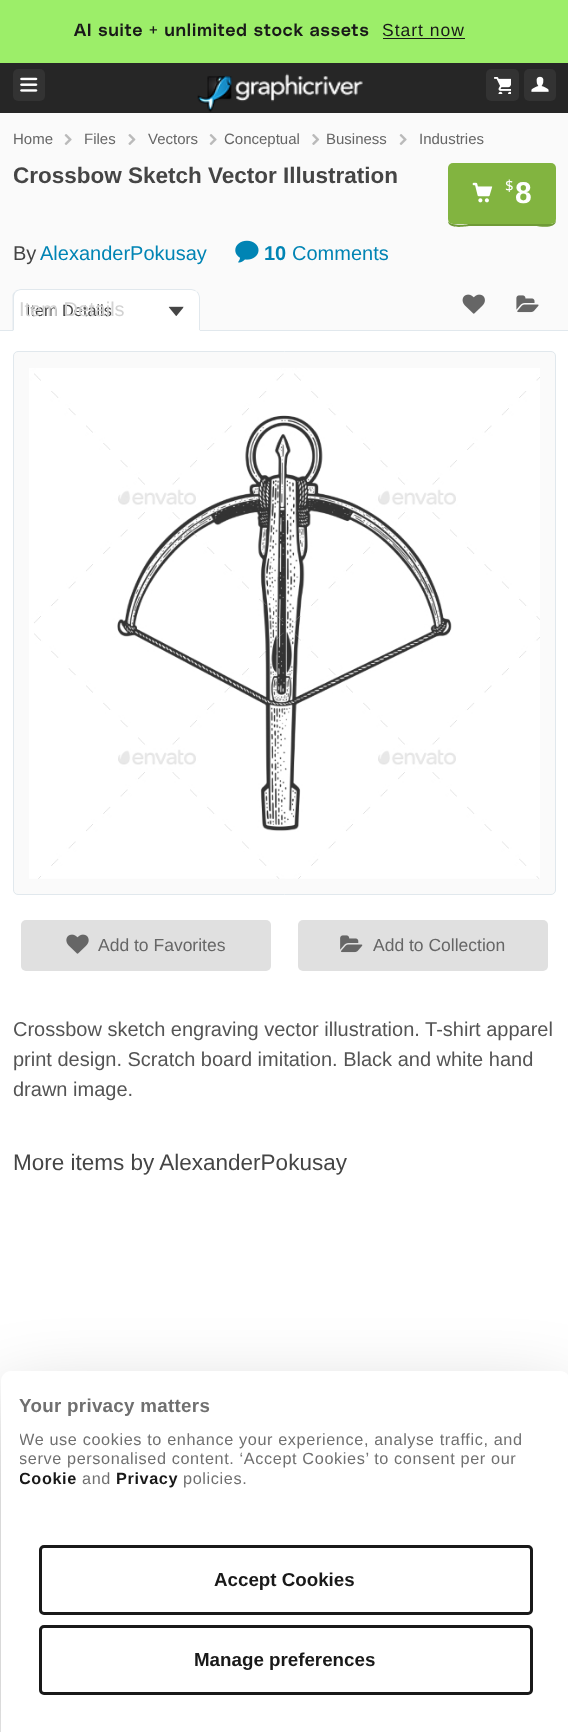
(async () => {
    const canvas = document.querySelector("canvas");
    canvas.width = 568;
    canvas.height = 1732;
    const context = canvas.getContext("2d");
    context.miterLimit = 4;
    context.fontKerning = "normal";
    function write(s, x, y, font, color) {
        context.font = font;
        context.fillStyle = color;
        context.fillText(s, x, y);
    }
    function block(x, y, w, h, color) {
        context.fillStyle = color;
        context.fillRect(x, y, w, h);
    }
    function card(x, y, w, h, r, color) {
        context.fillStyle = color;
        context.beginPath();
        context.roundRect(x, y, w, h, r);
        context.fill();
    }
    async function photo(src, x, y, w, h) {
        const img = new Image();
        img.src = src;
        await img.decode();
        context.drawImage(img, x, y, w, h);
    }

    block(0, 0, 568, 1732, "rgb(255, 255, 255)");
    block(0, 0, 568, 63, "rgb(156, 238, 105)");
    context.letterSpacing = "1px";
    write("AI suite + unlimited stock assets", 74, 36, "600 17.5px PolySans", "rgb(25, 25, 25)");
    write("Start now", 382, 36, "17.5px Liberation Sans", "rgb(25, 25, 25)");
    block(383, 38, 82, 1, "rgb(25, 25, 25)");
    block(0, 63, 568, 50, "rgb(38, 38, 38)");
    card(13, 69, 32, 32, 5, "rgb(51, 51, 51)");
    await photo("media/1.png", 20, 77, 18, 15);
    await photo("media/2.png", 197, 73, 166, 39);
    card(486, 69, 33, 32, 5, "rgb(51, 51, 51)");
    await photo("media/3.png", 494, 77, 17, 17);
    card(524, 69, 32, 32, 5, "rgb(51, 51, 51)");
    await photo("media/4.png", 531, 76, 18, 16);
    block(0, 113, 568, 217, "rgb(250, 250, 250)");
    block(0, 330, 568, 1, "rgb(225, 232, 237)");
    context.letterSpacing = "0px";
    write("Home", 13, 144, "15px Liberation Sans", "rgb(102, 102, 102)");
    await photo("media/5.png", 64, 134, 8, 11);
    write("Files", 84, 144, "15px Liberation Sans", "rgb(102, 102, 102)");
    await photo("media/6.png", 128, 134, 8, 11);
    write("Vectors", 148, 144, "15px Liberation Sans", "rgb(102, 102, 102)");
    await photo("media/5.png", 209, 134, 8, 11);
    write("Conceptual", 224, 144, "15px Liberation Sans", "rgb(102, 102, 102)");
    await photo("media/7.png", 312, 134, 8, 11);
    write("Business", 326, 144, "15px Liberation Sans", "rgb(102, 102, 102)");
    await photo("media/5.png", 399, 134, 8, 11);
    write("Industries", 419, 144, "15px Liberation Sans", "rgb(102, 102, 102)");
    write("Crossbow Sketch Vector Illustration", 13, 183, "bold 22.5px Liberation Sans", "rgb(69, 69, 69)");
    context.fillStyle = "rgb(111, 154, 55)";
    context.beginPath();
    context.moveTo(448, 221);
    context.bezierCurveTo(448, 230, 468, 226, 469, 226);
    context.lineTo(535, 226);
    context.bezierCurveTo(539, 226, 556, 230, 556, 220);
    context.lineTo(555, 222);
    context.lineTo(552, 224);
    context.lineTo(469, 224);
    context.bezierCurveTo(469, 224, 451, 227, 448, 221);
    context.closePath();
    context.fill();
    card(448, 163, 108, 61, 5, "rgb(130, 180, 64)");
    await photo("media/8.png", 472, 182, 21, 21);
    write("$", 505, 191, "15px Noto Sans", "rgb(255, 255, 255)");
    write("8", 515, 203, "bold 30px Liberation Sans", "rgb(255, 255, 255)");
    write("By", 13, 260, "20px Liberation Sans", "rgb(69, 69, 69)");
    write("AlexanderPokusay", 40, 260, "20px Liberation Sans", "rgb(0, 132, 180)");
    await photo("media/9.png", 235, 240, 24, 23);
    write("10", 264, 260, "bold 20px Liberation Sans", "rgb(0, 132, 180)");
    write("Comments", 292, 260, "20px Liberation Sans", "rgb(0, 132, 180)");
    context.fillStyle = "rgb(255, 255, 255)";
    context.beginPath();
    context.roundRect(13, 289, 187, 42, [9, 9, 0, 0]);
    context.fill();
    await photo("media/10.png", 168, 306, 16, 10);
    context.beginPath();
    context.moveTo(184, 307);
    context.lineTo(189, 312);
    context.lineTo(194, 307);
    context.strokeStyle = "rgb(255, 255, 255)";
    context.lineWidth = 2.5;
    context.stroke();
    write("Item Details", 26, 316, "16.25px Liberation Sans", "rgb(69, 69, 69)");
    write("Item Details", 19, 316, "20px Liberation Sans", "rgb(210, 210, 210)");
    context.fillStyle = "rgb(225, 232, 237)";
    context.beginPath();
    context.moveTo(21, 289);
    context.bezierCurveTo(19, 289, 17, 290, 15, 291);
    context.lineTo(16, 292);
    context.bezierCurveTo(17, 291, 19, 290, 21, 290);
    context.lineTo(191, 290);
    context.bezierCurveTo(193, 290, 195, 291, 197, 292);
    context.bezierCurveTo(196, 290, 193, 289, 191, 289);
    context.closePath();
    context.fill();
    context.beginPath();
    context.moveTo(197, 291.5);
    context.bezierCurveTo(199, 293, 200, 295.5, 200, 298);
    context.lineTo(200, 331);
    context.lineTo(199, 330);
    context.lineTo(199, 298);
    context.bezierCurveTo(199, 295.5, 198, 293.5, 196.5, 292);
    context.closePath();
    context.fill();
    context.fillStyle = "rgb(255, 255, 255)";
    context.beginPath();
    context.moveTo(200, 331);
    context.lineTo(13, 331);
    context.lineTo(14, 330);
    context.lineTo(199, 330);
    context.closePath();
    context.fill();
    context.fillStyle = "rgb(225, 232, 237)";
    context.beginPath();
    context.moveTo(12.5, 295);
    context.bezierCurveTo(13, 293.5, 14, 292.5, 15, 291.5);
    context.lineTo(16, 292);
    context.bezierCurveTo(14.5, 293.5, 14, 295.5, 14, 298);
    context.lineTo(14, 330);
    context.lineTo(12.5, 331);
    context.closePath();
    context.fill();
    await photo("media/11.png", 462, 294, 23, 20);
    await photo("media/12.png", 516, 295, 23, 18);
    context.fillStyle = "rgb(250, 250, 250)";
    context.beginPath();
    context.roundRect(13.5, 351.5, 542, 543, 4.5);
    context.fill();
    context.strokeStyle = "rgb(225, 232, 237)";
    context.lineWidth = 1;
    context.stroke();
    await photo("media/13.png", 29, 368, 511, 511);
    card(21, 920, 250, 51, 5, "rgb(224, 224, 224)");
    await photo("media/14.png", 66, 934, 23, 20);
    write("Add to Favorites", 98, 951, "17.5px Liberation Sans", "rgb(102, 102, 102)");
    card(298, 920, 250, 51, 5, "rgb(224, 224, 224)");
    await photo("media/15.png", 340, 935, 23, 18);
    write("Add to Collection", 373, 951, "17.5px Liberation Sans", "rgb(102, 102, 102)");
    write("Crossbow sketch engraving vector illustration. T-shirt apparel", 13, 1036, "20px Liberation Sans", "rgb(84, 84, 84)");
    write("print design. Scratch board imitation. Black and white hand", 13, 1066, "20px Liberation Sans", "rgb(84, 84, 84)");
    write("drawn image.", 13, 1096, "20px Liberation Sans", "rgb(84, 84, 84)");
    write("More items by AlexanderPokusay", 13, 1170, "22.5px Liberation Sans", "rgb(69, 69, 69)");
    context.fillStyle = "rgba(0, 0, 0, 0.3)";
    context.filter = "blur(42.5px)";
    context.beginPath();
    context.roundRect(1, 1411, 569, 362, 10);
    context.fill();
    context.filter = "none";
    context.fillStyle = "rgb(255, 255, 255)";
    context.beginPath();
    context.moveTo(11, 1371);
    context.lineTo(560, 1371);
    context.bezierCurveTo(565.5, 1371, 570, 1375.5, 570, 1381);
    context.lineTo(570, 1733);
    context.lineTo(1, 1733);
    context.lineTo(1, 1381);
    context.bezierCurveTo(1, 1375.5, 5.5, 1371, 11, 1371);
    context.closePath();
    context.fill();
    context.letterSpacing = "0.3px";
    write("Your privacy matters", 19, 1412, "bold 18.75px Liberation Sans", "rgb(112, 112, 112)");
    context.save();
    context.beginPath();
    context.rect(20, 1390, 531, 99);
    context.clip();
    context.letterSpacing = "0.62px";
    write("We use cookies to enhance your experience, analyse traffic, and", 19, 1445, "16.25px Liberation Sans", "rgb(112, 112, 112)");
    write("serve personalised content. ‘Accept Cookies’ to consent per our", 19, 1464, "16.25px Liberation Sans", "rgb(112, 112, 112)");
    write("Cookie", 19, 1484, "bold 16.25px Liberation Sans", "rgb(25, 25, 25)");
    context.restore();
    context.letterSpacing = "0.62px";
    write("and", 82, 1484, "16.25px Liberation Sans", "rgb(112, 112, 112)");
    write("Privacy", 116, 1484, "bold 16.25px Liberation Sans", "rgb(25, 25, 25)");
    write("policies.", 183, 1484, "16.25px Liberation Sans", "rgb(112, 112, 112)");
    context.beginPath();
    context.roundRect(40.5, 1546.5, 491, 67, 3.5);
    context.strokeStyle = "rgb(25, 25, 25)";
    context.lineWidth = 3;
    context.stroke();
    context.letterSpacing = "0px";
    write("Accept Cookies", 214, 1586, "bold 18.75px Liberation Sans", "rgb(25, 25, 25)");
    context.beginPath();
    context.roundRect(40.5, 1626.5, 491, 67, 3.5);
    context.stroke();
    write("Manage preferences", 194, 1666, "bold 18.75px Liberation Sans", "rgb(25, 25, 25)");
})();
